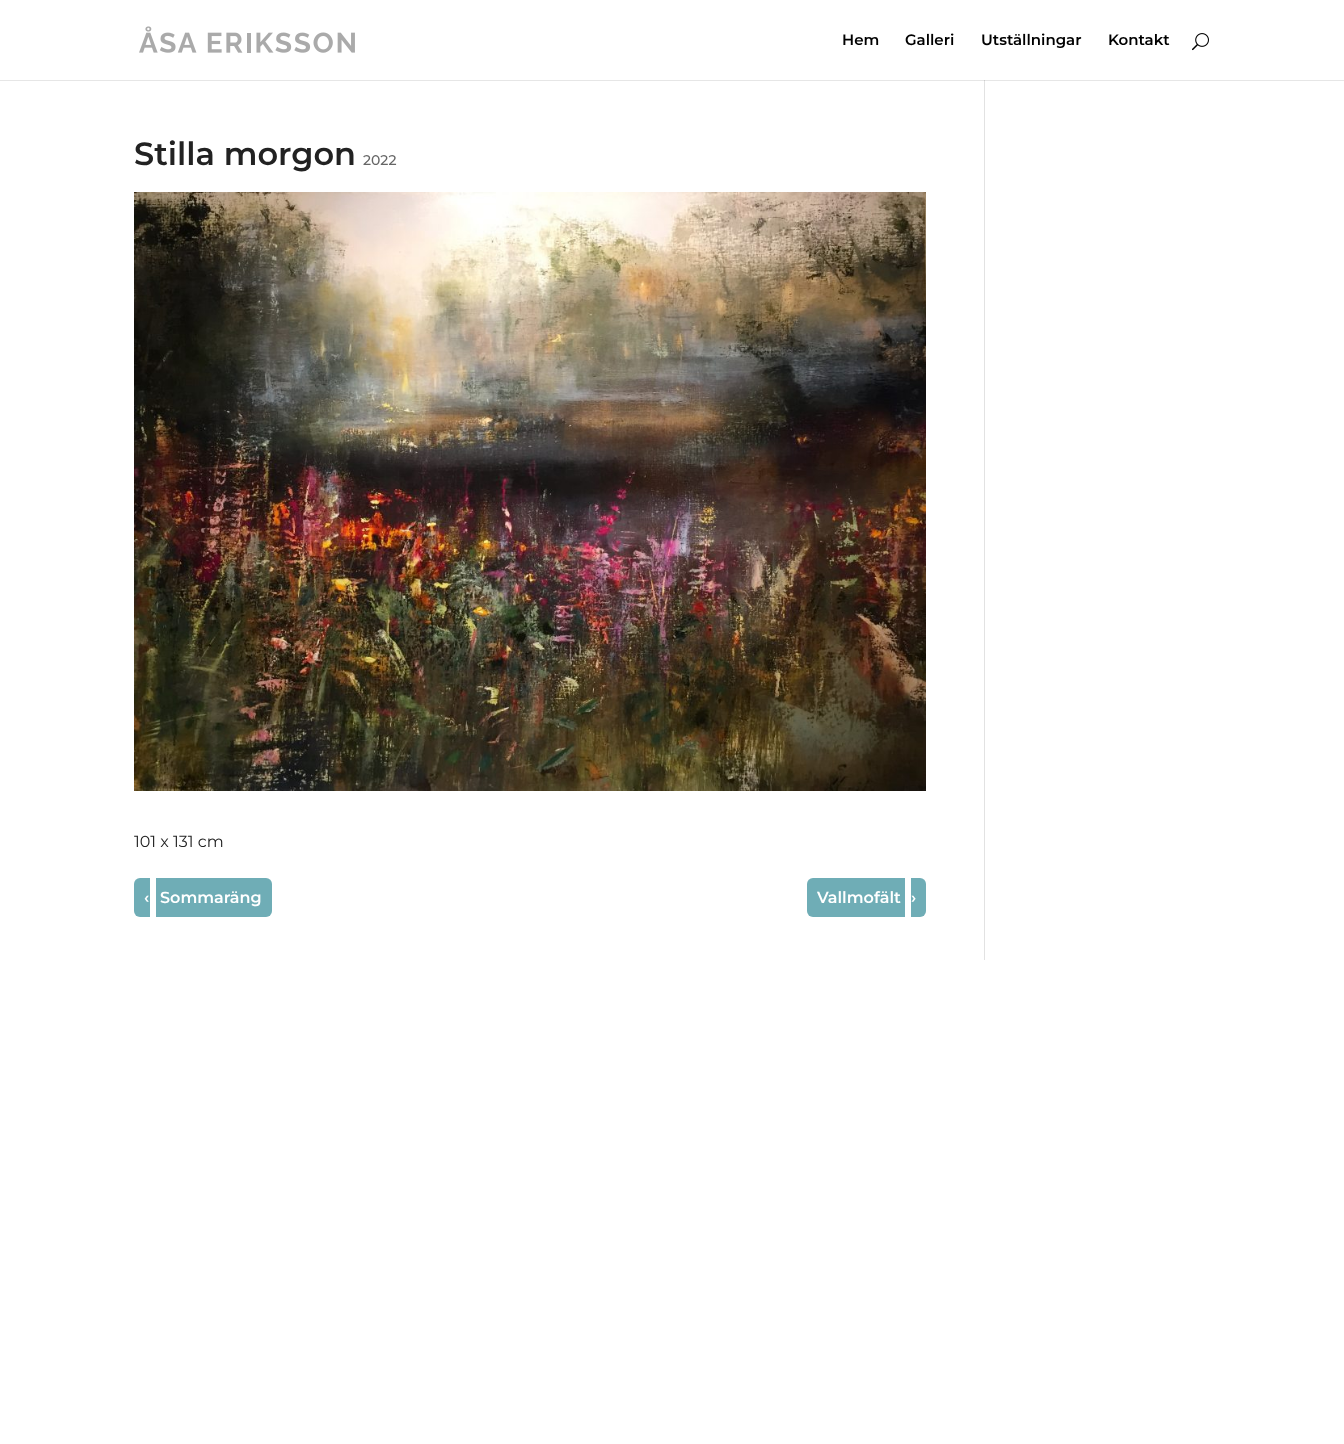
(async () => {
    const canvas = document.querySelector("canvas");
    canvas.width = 1344;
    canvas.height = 1444;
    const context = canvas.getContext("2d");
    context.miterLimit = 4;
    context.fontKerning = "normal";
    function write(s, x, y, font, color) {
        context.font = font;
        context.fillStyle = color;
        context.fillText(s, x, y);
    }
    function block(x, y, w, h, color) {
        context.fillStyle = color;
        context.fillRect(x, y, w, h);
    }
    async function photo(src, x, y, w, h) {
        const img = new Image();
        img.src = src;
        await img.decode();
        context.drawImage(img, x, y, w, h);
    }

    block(0, 0, 1344, 1444, "rgb(255, 255, 255)");
    block(0, 80, 1344, 1, "rgb(230, 230, 230)");
    await photo("media/1.png", 139, 26, 216, 27);
    write("Hem", 842, 45, "100 15px Montserrat", "rgb(0, 0, 0)");
    write("Galleri", 905, 45, "100 15px Montserrat", "rgb(0, 0, 0)");
    write("Utställningar", 981, 45, "100 15px Montserrat", "rgb(0, 0, 0)");
    write("Kontakt", 1108, 45, "100 15px Montserrat", "rgb(0, 0, 0)");
    await photo("media/2.png", 1192, 33, 17, 18);
    write("Stilla morgon", 134, 165, "100 32px Montserrat", "rgb(34, 34, 34)");
    write("2022", 363, 165, "100 14px 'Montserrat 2'", "rgb(102, 102, 102)");
    await photo("media/3.png", 134, 192, 792, 599);
    write("101 x 131 cm", 134, 847, "100 16px 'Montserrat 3'", "rgb(34, 34, 34)");
    context.fillStyle = "rgb(111, 173, 182)";
    context.beginPath();
    context.roundRect(134, 878, 16, 39, [6, 0, 0, 6]);
    context.fill();
    write("‹", 144, 903, "100 16px Montserrat", "rgb(255, 255, 255)");
    context.fillStyle = "rgb(111, 173, 182)";
    context.beginPath();
    context.roundRect(156, 878, 116, 39, [0, 6, 6, 0]);
    context.fill();
    write("Sommaräng", 160, 903, "100 16px Montserrat", "rgb(255, 255, 255)");
    context.fillStyle = "rgb(111, 173, 182)";
    context.beginPath();
    context.roundRect(807, 878, 98, 39, [6, 0, 0, 6]);
    context.fill();
    write("Vallmofält", 817, 903, "100 16px Montserrat", "rgb(255, 255, 255)");
    context.fillStyle = "rgb(111, 173, 182)";
    context.beginPath();
    context.roundRect(911, 878, 15, 39, [0, 6, 6, 0]);
    context.fill();
    write("›", 911, 903, "100 16px Montserrat", "rgb(255, 255, 255)");
    block(984, 80, 1, 880, "rgb(226, 226, 226)");
    block(984, 80, 1, 1, "rgb(203, 203, 203)");
})();
